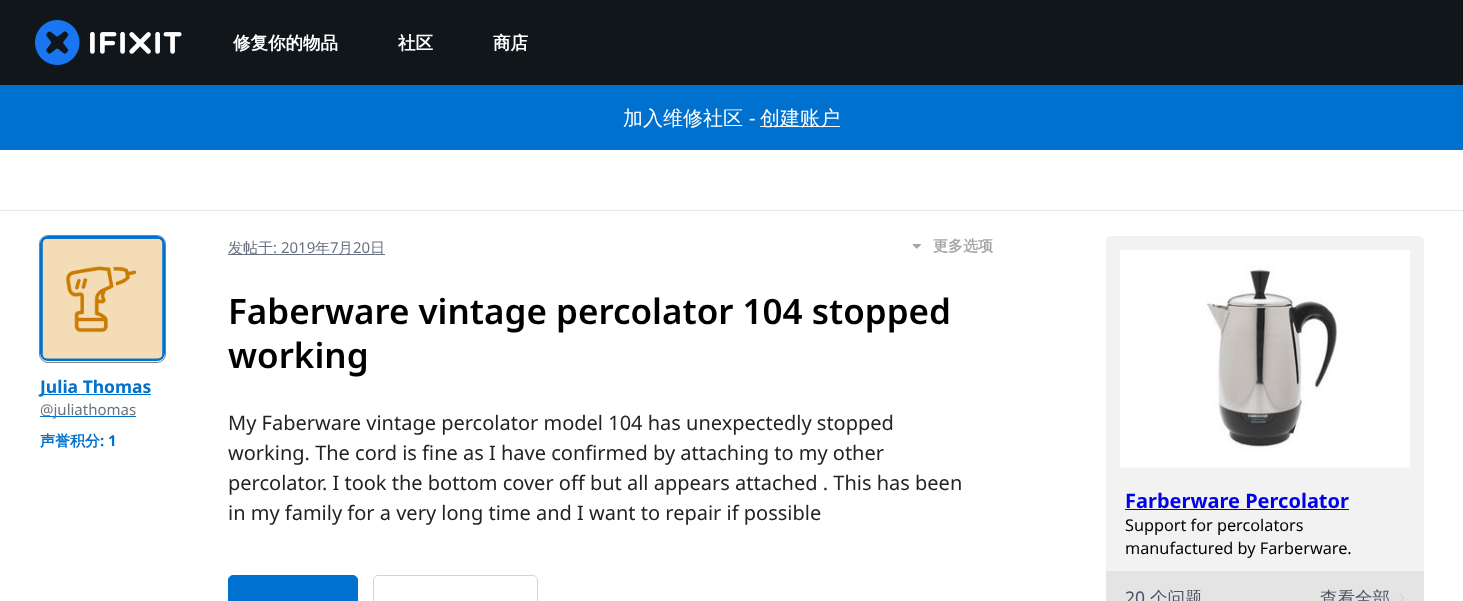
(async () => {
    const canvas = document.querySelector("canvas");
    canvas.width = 1463;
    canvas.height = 601;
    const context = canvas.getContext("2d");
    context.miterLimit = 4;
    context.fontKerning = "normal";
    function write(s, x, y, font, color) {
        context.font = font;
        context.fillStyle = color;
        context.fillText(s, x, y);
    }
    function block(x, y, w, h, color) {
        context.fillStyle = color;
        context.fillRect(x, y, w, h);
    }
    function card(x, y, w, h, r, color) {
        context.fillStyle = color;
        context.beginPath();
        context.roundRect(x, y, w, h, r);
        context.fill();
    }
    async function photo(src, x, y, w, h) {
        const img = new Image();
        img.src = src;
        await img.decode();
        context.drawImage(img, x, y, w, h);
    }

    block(0, 0, 1463, 601, "rgb(255, 255, 255)");
    block(0, 0, 1463, 85, "rgb(17, 22, 26)");
    await photo("media/1.png", 35, 20, 147, 45);
    write("修复你的物品", 233, 49, "bold 17.5px WenQuanYi Zen Hei", "rgb(255, 255, 255)");
    write("社区", 398, 49, "bold 17.5px WenQuanYi Zen Hei", "rgb(255, 255, 255)");
    write("商店", 493, 49, "bold 17.5px WenQuanYi Zen Hei", "rgb(255, 255, 255)");
    block(0, 85, 1463, 65, "rgb(0, 113, 206)");
    write("加入维修社区", 623, 125, "500 20px WenQuanYi Zen Hei", "rgb(255, 255, 255)");
    write("-", 749, 125, "20px Noto Sans", "rgb(255, 255, 255)");
    block(760, 126, 80, 1, "rgb(255, 255, 255)");
    write("创建账户", 760, 125, "500 20px WenQuanYi Zen Hei", "rgb(255, 255, 255)");
    block(0, 210, 1463, 1, "rgb(229, 231, 235)");
    context.beginPath();
    context.roundRect(39.5, 235.5, 126, 127, 8.5);
    context.strokeStyle = "rgb(128, 128, 128)";
    context.stroke();
    context.beginPath();
    context.roundRect(41.5, 237.5, 122, 122, 6.5);
    context.strokeStyle = "rgb(0, 113, 206)";
    context.lineWidth = 3;
    context.stroke();
    await photo("media/2.png", 42, 238, 121, 121);
    block(40, 394, 111, 1, "rgb(0, 113, 206)");
    write("Julia Thomas", 40, 393, "bold 17.5px Noto Sans", "rgb(0, 113, 206)");
    block(40, 416, 96, 1, "rgb(0, 113, 206)");
    write("@juliathomas", 40, 415, "15px Noto Sans", "rgb(107, 114, 128)");
    write("声誉积分", 40, 446, "bold 15px WenQuanYi Zen Hei", "rgb(0, 113, 206)");
    write(": 1", 100, 446, "bold 15px Noto Sans", "rgb(0, 113, 206)");
    block(228, 254, 157, 1, "rgb(107, 114, 128)");
    write("发帖于", 228, 253, "500 15px WenQuanYi Zen Hei", "rgb(107, 114, 128)");
    write(": 2019", 273, 253, "15px Noto Sans", "rgb(107, 114, 128)");
    write("年", 315, 253, "500 15px WenQuanYi Zen Hei", "rgb(107, 114, 128)");
    write("7", 330, 253, "15px Noto Sans", "rgb(107, 114, 128)");
    write("月", 338, 253, "500 15px WenQuanYi Zen Hei", "rgb(107, 114, 128)");
    write("20", 353, 253, "15px Noto Sans", "rgb(107, 114, 128)");
    write("日", 370, 253, "500 15px WenQuanYi Zen Hei", "rgb(107, 114, 128)");
    await photo("media/3.png", 912, 243, 9, 6);
    write("更多选项", 933, 251, "bold 15px WenQuanYi Zen Hei", "rgb(166, 167, 168)");
    write("Faberware vintage percolator 104 stopped", 228, 324, "600 35px Noto Sans", "rgb(0, 0, 0)");
    write("working", 228, 368, "600 35px Noto Sans", "rgb(0, 0, 0)");
    write("My Faberware vintage percolator model 104 has unexpectedly stopped", 228, 430, "20px Noto Sans", "rgb(33, 36, 38)");
    write("working. The cord is fine as I have confirmed by attaching to my other", 228, 460, "20px Noto Sans", "rgb(33, 36, 38)");
    write("percolator. I took the bottom cover off but all appears attached . This has been", 228, 490, "20px Noto Sans", "rgb(33, 36, 38)");
    write("in my family for a very long time and I want to repair if possible", 228, 520, "20px Noto Sans", "rgb(33, 36, 38)");
    context.fillStyle = "rgb(0, 113, 206)";
    context.beginPath();
    context.roundRect(228.5, 575.5, 129, 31, 4.5);
    context.fill();
    context.lineWidth = 1;
    context.stroke();
    context.beginPath();
    context.roundRect(373.5, 575.5, 164, 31, 4.5);
    context.strokeStyle = "rgb(209, 213, 219)";
    context.stroke();
    card(1106, 236, 318, 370, 5, "rgb(242, 242, 242)");
    await photo("media/4.png", 1120, 250, 290, 218);
    write("Farberware Percolator", 1125, 508, "bold 20px Noto Sans", "rgb(0, 0, 238)");
    block(1125, 509, 224, 1, "rgb(0, 0, 238)");
    write("Support for percolators", 1125, 531, "16.25px Noto Sans", "rgb(0, 0, 0)");
    write("manufactured by Farberware.", 1125, 554, "16.25px Noto Sans", "rgb(0, 0, 0)");
    block(1106, 571, 318, 30, "rgb(228, 228, 228)");
    write("20", 1125, 604, "17.5px Noto Sans", "rgb(75, 85, 99)");
    write("个问题", 1150, 604, "500 17.5px WenQuanYi Zen Hei", "rgb(75, 85, 99)");
    write("查看全部", 1320, 604, "500 17.5px WenQuanYi Zen Hei", "rgb(75, 85, 99)");
    await photo("media/5.png", 1399, 593, 6, 8);
})();
